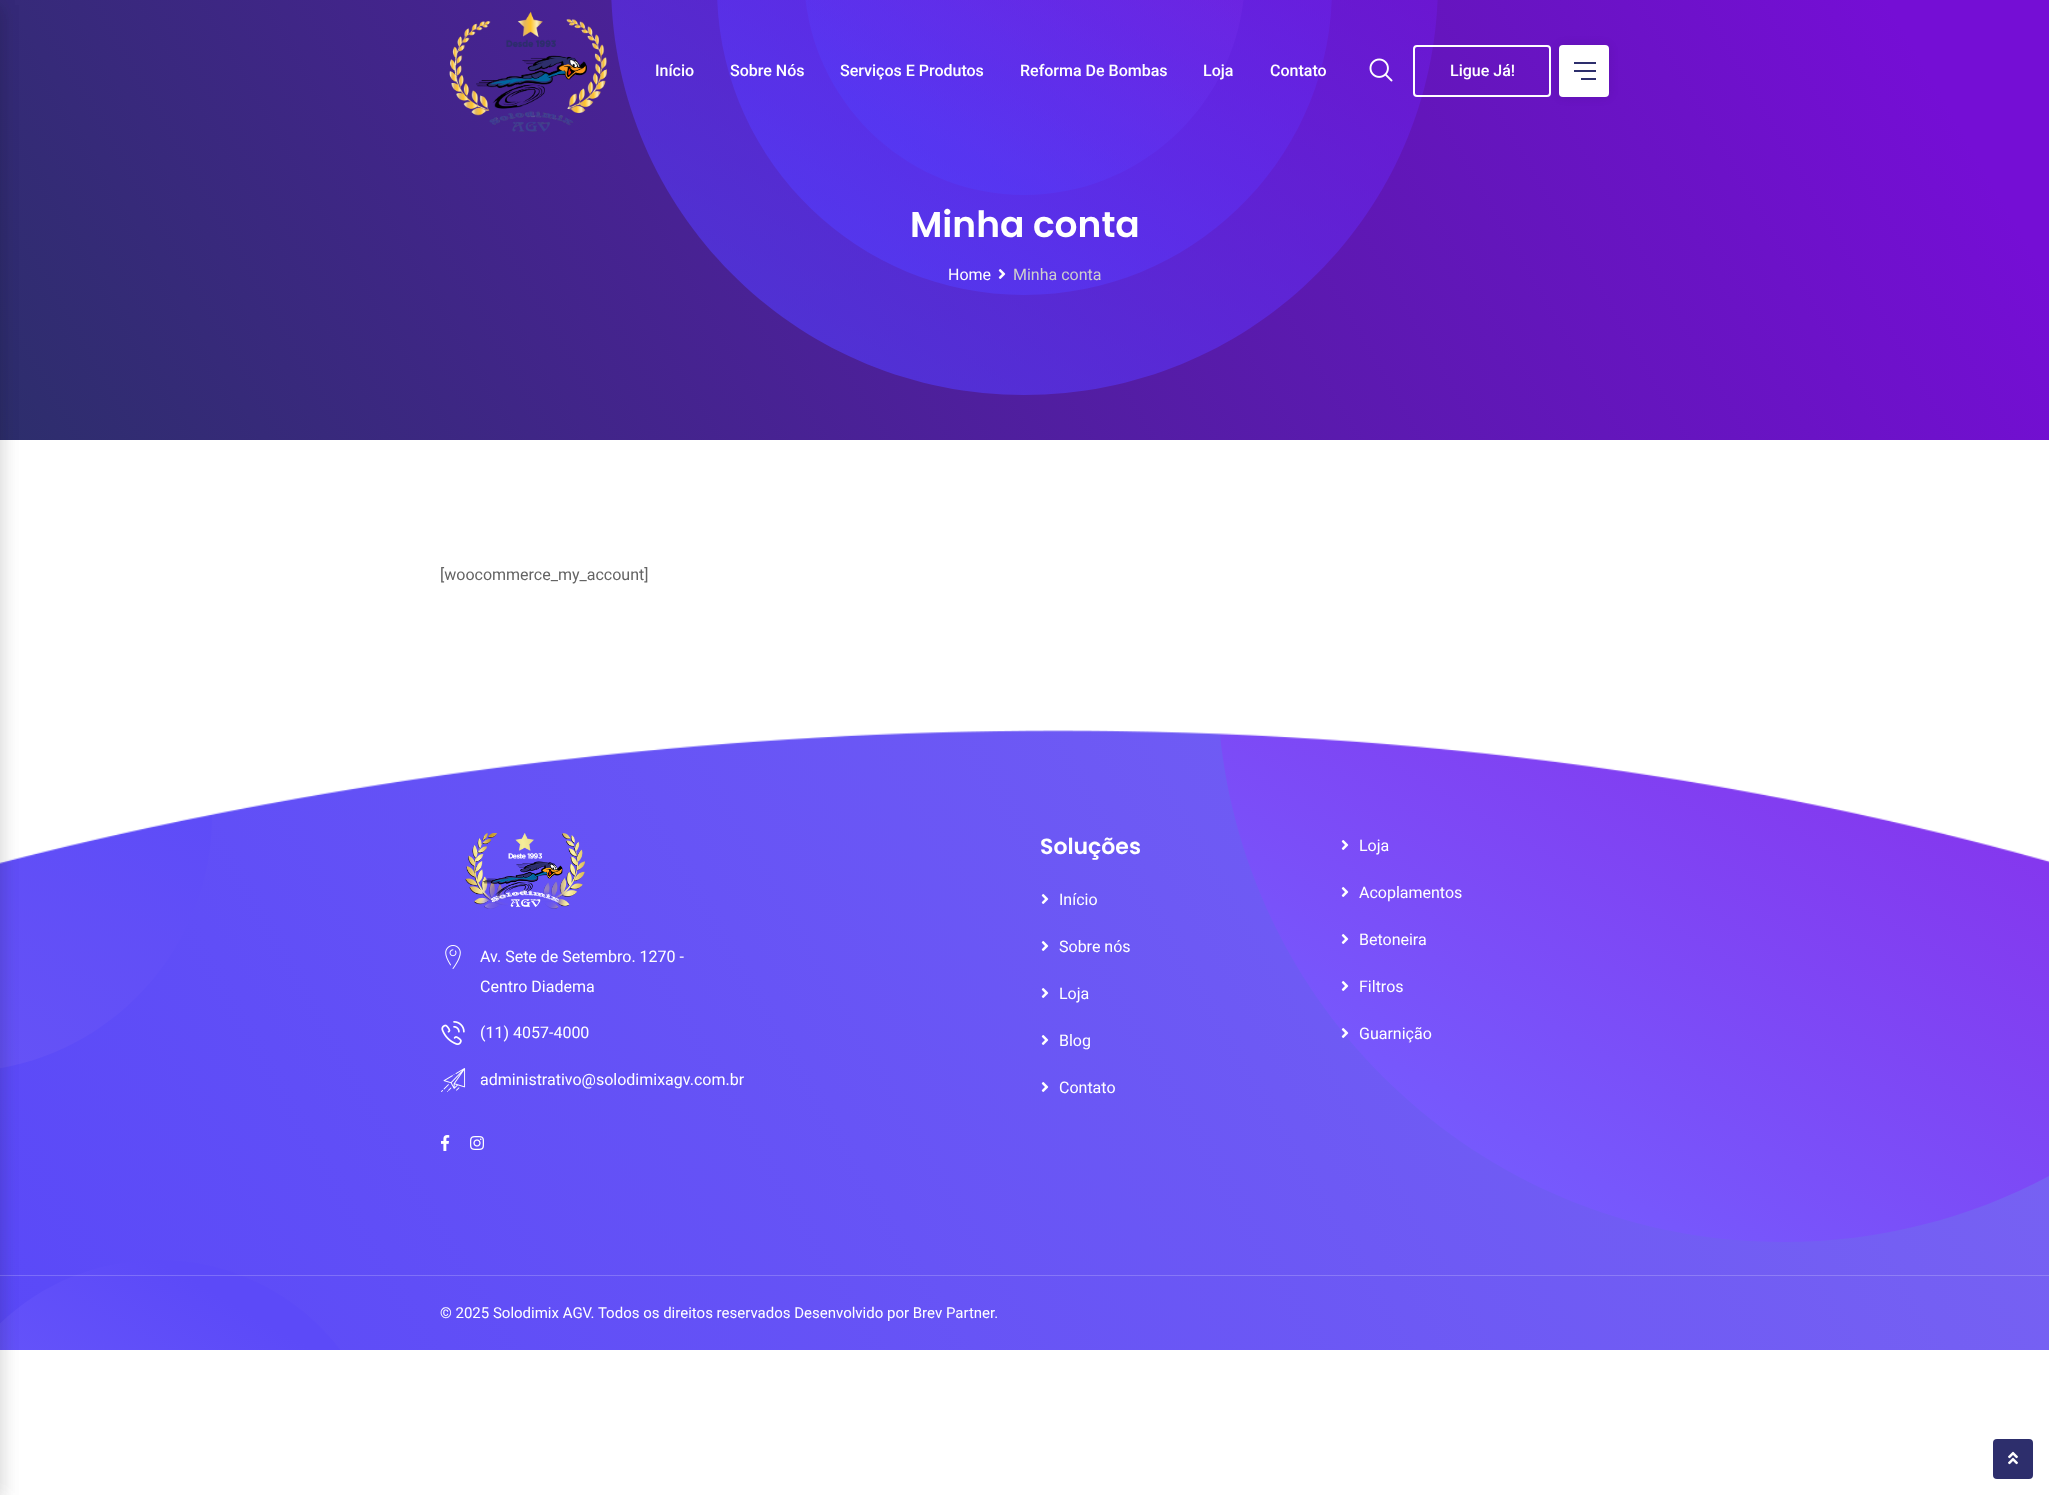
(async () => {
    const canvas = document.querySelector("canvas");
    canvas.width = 2049;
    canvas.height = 1495;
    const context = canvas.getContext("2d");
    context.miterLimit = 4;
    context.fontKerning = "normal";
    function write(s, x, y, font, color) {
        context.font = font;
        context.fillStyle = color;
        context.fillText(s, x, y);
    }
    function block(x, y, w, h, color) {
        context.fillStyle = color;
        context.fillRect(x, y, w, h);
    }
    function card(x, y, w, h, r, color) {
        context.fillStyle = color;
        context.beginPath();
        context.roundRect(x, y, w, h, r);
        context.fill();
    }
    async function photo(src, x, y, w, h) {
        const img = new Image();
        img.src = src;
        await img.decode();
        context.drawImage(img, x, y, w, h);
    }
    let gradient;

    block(0, 0, 2049, 1495, "rgb(255, 255, 255)");
    gradient = context.createLinearGradient(161, 719, 1888, -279);
    gradient.addColorStop(0, "rgb(45, 46, 108)");
    gradient.addColorStop(0.93, "rgb(117, 14, 213)");
    context.fillStyle = gradient;
    context.fillRect(0, 0, 2049, 440);
    gradient = context.createLinearGradient(122, 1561, 1927, 519);
    gradient.addColorStop(0, "rgb(90, 73, 248)");
    gradient.addColorStop(1, "rgb(122, 100, 242)");
    context.fillStyle = gradient;
    context.fillRect(0, 730, 2049, 620);
    context.save();
    context.beginPath();
    context.rect(0, 730, 212, 342);
    context.clip();
    gradient = context.createLinearGradient(-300, 1003, -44, 560);
    gradient.addColorStop(0, "rgb(103, 84, 246)");
    gradient.addColorStop(1, "rgb(92, 74, 248)");
    context.fillStyle = gradient;
    context.beginPath();
    context.moveTo(-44, 560);
    context.bezierCurveTo(97, 560, 212, 675, 212, 816);
    context.bezierCurveTo(212, 957, 97, 1072, -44, 1072);
    context.bezierCurveTo(-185, 1072, -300, 957, -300, 816);
    context.bezierCurveTo(-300, 675, -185, 560, -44, 560);
    context.closePath();
    context.fill();
    context.restore();
    context.save();
    context.beginPath();
    context.rect(0, 1260, 387, 90);
    context.clip();
    gradient = context.createLinearGradient(-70, 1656, 159, 1260);
    gradient.addColorStop(0, "rgb(115, 99, 253)");
    gradient.addColorStop(1, "rgb(92, 74, 248)");
    context.fillStyle = gradient;
    context.beginPath();
    context.moveTo(158, 1260);
    context.bezierCurveTo(285, 1260, 387, 1362, 387, 1488);
    context.bezierCurveTo(387, 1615, 285, 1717, 158, 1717);
    context.bezierCurveTo(32, 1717, -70, 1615, -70, 1488);
    context.bezierCurveTo(-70, 1362, 32, 1260, 158, 1260);
    context.closePath();
    context.fill();
    context.restore();
    context.save();
    context.beginPath();
    context.rect(1217, 730, 832, 512);
    context.clip();
    gradient = context.createLinearGradient(1217, 1090, 1783, 110);
    gradient.addColorStop(0, "rgb(116, 94, 255)");
    gradient.addColorStop(1, "rgb(146, 23, 224)");
    context.fillStyle = gradient;
    context.beginPath();
    context.moveTo(1783, 110);
    context.bezierCurveTo(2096, 110, 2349, 363, 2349, 676);
    context.bezierCurveTo(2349, 989, 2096, 1242, 1783, 1242);
    context.bezierCurveTo(1470, 1242, 1217, 989, 1217, 676);
    context.bezierCurveTo(1217, 363, 1470, 110, 1783, 110);
    context.closePath();
    context.fill();
    context.restore();
    await photo("media/5.png", 465, 833, 120, 76);
    write("Soluções", 1040, 854, "600 22px Poppins", "rgb(255, 255, 255)");
    await photo("media/15.png", 1341, 840, 8, 10);
    write("Loja", 1359, 851, "16px Roboto", "rgb(255, 255, 255)");
    await photo("media/4.png", 0, 730, 2049, 134);
    block(0, 1275, 2049, 1, "rgba(255, 255, 255, 0.2)");
    context.fillStyle = "rgba(0, 0, 0, 0.1)";
    context.filter = "blur(10px)";
    context.beginPath();
    context.rect(-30, 5, 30, 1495);
    context.fill();
    context.filter = "none";
    await photo("media/1.png", 449, 11, 158, 121);
    gradient = context.createLinearGradient(611, 284, 1025, -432);
    gradient.addColorStop(0, "rgba(82, 63, 255, 0.6)");
    gradient.addColorStop(1, "rgba(117, 14, 213, 0.6)");
    context.fillStyle = gradient;
    context.beginPath();
    context.moveTo(1024, -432);
    context.bezierCurveTo(1253, -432, 1438, -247, 1438, -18);
    context.bezierCurveTo(1438, 210, 1253, 395, 1024, 395);
    context.bezierCurveTo(796, 395, 611, 210, 611, -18);
    context.bezierCurveTo(611, -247, 796, -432, 1024, -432);
    context.closePath();
    context.fill();
    write("Início", 655, 76, "500 16px Roboto", "rgb(255, 255, 255)");
    gradient = context.createLinearGradient(717, 213, 1025, -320);
    gradient.addColorStop(0, "rgba(82, 63, 255, 0.6)");
    gradient.addColorStop(1, "rgba(109, 26, 223, 0.6)");
    context.fillStyle = gradient;
    context.beginPath();
    context.moveTo(1024, -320);
    context.bezierCurveTo(1194, -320, 1332, -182, 1332, -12);
    context.bezierCurveTo(1332, 157, 1194, 295, 1024, 295);
    context.bezierCurveTo(855, 295, 717, 157, 717, -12);
    context.bezierCurveTo(717, -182, 855, -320, 1024, -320);
    context.closePath();
    context.fill();
    write("Sobre Nós", 730, 76, "500 16px Roboto", "rgb(255, 255, 255)");
    gradient = context.createLinearGradient(804, 136, 1025, -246);
    gradient.addColorStop(0.13, "rgba(82, 63, 255, 0.4)");
    gradient.addColorStop(1, "rgba(130, 33, 221, 0.4)");
    context.fillStyle = gradient;
    context.beginPath();
    context.moveTo(1024, -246);
    context.bezierCurveTo(1146, -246, 1245, -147, 1245, -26);
    context.bezierCurveTo(1245, 96, 1146, 195, 1024, 195);
    context.bezierCurveTo(903, 195, 804, 96, 804, -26);
    context.bezierCurveTo(804, -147, 903, -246, 1024, -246);
    context.closePath();
    context.fill();
    write("Serviços E Produtos", 840, 76, "500 16px Roboto", "rgb(255, 255, 255)");
    write("Reforma De Bombas", 1020, 76, "500 16px Roboto", "rgb(255, 255, 255)");
    write("Loja", 1203, 76, "500 16px Roboto", "rgb(255, 255, 255)");
    write("Contato", 1270, 76, "500 16px Roboto", "rgb(255, 255, 255)");
    context.fillStyle = "rgba(0, 0, 0, 0.1)";
    context.filter = "blur(10px)";
    context.beginPath();
    context.rect(-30, 5, 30, 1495);
    context.fill();
    context.filter = "none";
    context.fillStyle = "rgba(0, 0, 0, 0.09)";
    context.filter = "blur(5px)";
    context.beginPath();
    context.roundRect(1559, 45, 50, 52, 4);
    context.fill();
    context.filter = "none";
    card(1559, 45, 50, 52, 4, "rgb(255, 255, 255)");
    block(1574, 62, 22, 2, "rgb(45, 46, 108)");
    block(1574, 70, 22, 2, "rgb(45, 46, 108)");
    block(1581, 78, 15, 2, "rgb(45, 46, 108)");
    await photo("media/2.png", 1369, 58, 24, 24);
    context.beginPath();
    context.roundRect(1414, 46, 136, 50, 3);
    context.strokeStyle = "rgb(255, 255, 255)";
    context.lineWidth = 2;
    context.stroke();
    write("Ligue Já!", 1450, 76, "500 16px Roboto", "rgb(255, 255, 255)");
    write("Minha conta", 910, 237, "600 36px Poppins", "rgb(255, 255, 255)");
    write("Home", 948, 280, "16px Roboto", "rgb(255, 255, 255)");
    await photo("media/3.png", 998, 269, 8, 10);
    write("Minha conta", 1013, 280, "16px Roboto", "rgb(206, 206, 206)");
    write("[woocommerce_my_account]", 440, 580, "16px Roboto", "rgb(100, 100, 100)");
    await photo("media/6.png", 445, 945, 16, 24);
    write("Av. Sete de Setembro. 1270 -", 480, 962, "16px Roboto", "rgb(255, 255, 255)");
    write("Centro Diadema", 480, 992, "16px Roboto", "rgb(255, 255, 255)");
    await photo("media/7.png", 441, 1021, 24, 24);
    write("(11) 4057-4000", 480, 1038, "16px Roboto", "rgb(255, 255, 255)");
    await photo("media/8.png", 441, 1068, 25, 24);
    write("administrativo@solodimixagv.com.br", 480, 1085, "16px Roboto", "rgb(255, 255, 255)");
    await photo("media/9.png", 441, 1135, 9, 16);
    await photo("media/10.png", 470, 1136, 14, 14);
    await photo("media/11.png", 1041, 894, 8, 10);
    write("Início", 1059, 905, "16px Roboto", "rgb(255, 255, 255)");
    await photo("media/12.png", 1041, 941, 8, 10);
    write("Sobre nós", 1059, 952, "16px Roboto", "rgb(255, 255, 255)");
    await photo("media/12.png", 1041, 988, 8, 10);
    write("Loja", 1059, 999, "16px Roboto", "rgb(255, 255, 255)");
    await photo("media/13.png", 1041, 1035, 8, 10);
    write("Blog", 1059, 1046, "16px Roboto", "rgb(255, 255, 255)");
    await photo("media/14.png", 1041, 1082, 8, 10);
    write("Contato", 1059, 1093, "16px Roboto", "rgb(255, 255, 255)");
    await photo("media/16.png", 1341, 887, 8, 10);
    write("Acoplamentos", 1359, 898, "16px Roboto", "rgb(255, 255, 255)");
    await photo("media/17.png", 1341, 934, 8, 10);
    write("Betoneira", 1359, 945, "16px Roboto", "rgb(255, 255, 255)");
    await photo("media/18.png", 1341, 981, 8, 10);
    write("Filtros", 1359, 992, "16px Roboto", "rgb(255, 255, 255)");
    await photo("media/19.png", 1341, 1028, 8, 10);
    write("Guarnição", 1359, 1039, "16px Roboto", "rgb(255, 255, 255)");
    write("© 2025 Solodimix AGV. Todos os direitos reservados Desenvolvido por Brev Partner.", 440, 1318, "15px Roboto", "rgb(255, 255, 255)");
    card(1993, 1439, 40, 40, 4, "rgb(45, 46, 108)");
    await photo("media/20.png", 2008, 1451, 10, 14);
})();
